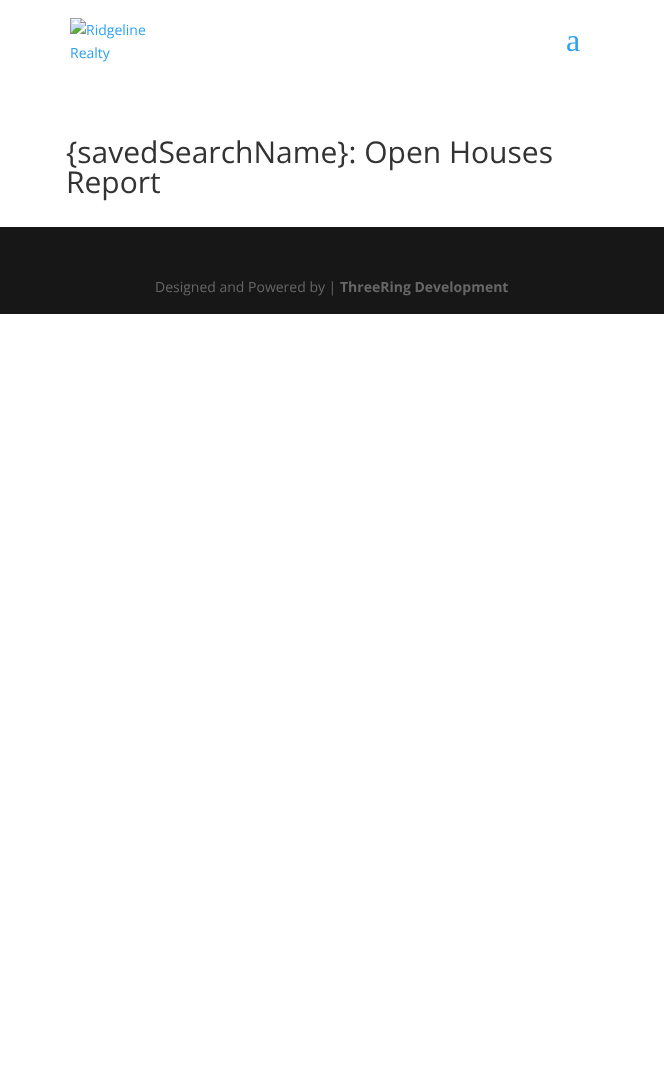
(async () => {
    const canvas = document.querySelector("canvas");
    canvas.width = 664;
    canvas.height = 1067;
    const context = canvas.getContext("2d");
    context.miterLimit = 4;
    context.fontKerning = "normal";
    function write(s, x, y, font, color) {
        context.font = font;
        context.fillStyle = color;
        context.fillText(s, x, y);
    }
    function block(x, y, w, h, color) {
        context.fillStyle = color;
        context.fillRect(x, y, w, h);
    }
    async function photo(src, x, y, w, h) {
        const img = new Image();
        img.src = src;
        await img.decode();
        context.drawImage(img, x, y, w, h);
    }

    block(0, 0, 664, 1067, "rgb(255, 255, 255)");
    await photo("media/1.png", 70, 18, 76, 44);
    write("a", 566, 51, "32px Liberation Serif", "rgb(46, 163, 242)");
    write("{savedSearchName}: Open Houses", 66, 163, "30px Open Sans", "rgb(51, 51, 51)");
    write("Report", 66, 193, "30px Open Sans", "rgb(51, 51, 51)");
    block(0, 227, 664, 87, "rgb(23, 23, 23)");
    write("Designed and Powered by |", 155, 292, "14px Open Sans", "rgb(102, 102, 102)");
    write("ThreeRing Development", 340, 292, "bold 14px Open Sans", "rgb(102, 102, 102)");
})();
